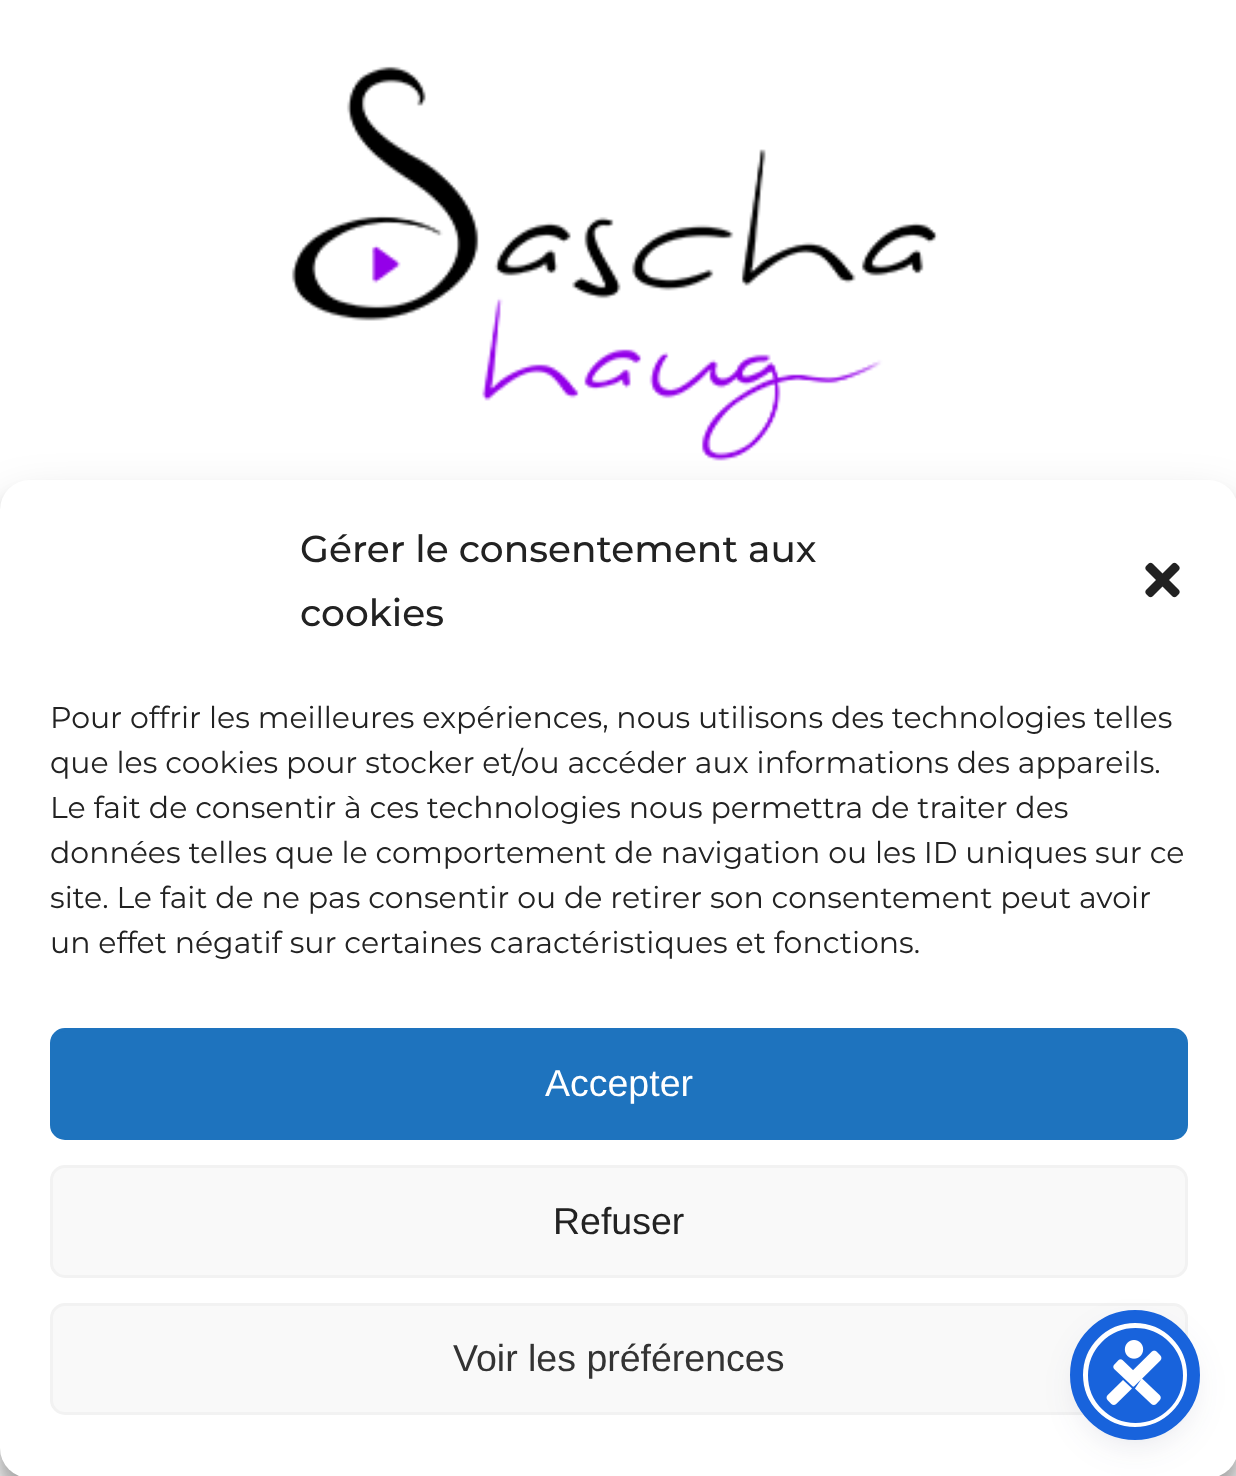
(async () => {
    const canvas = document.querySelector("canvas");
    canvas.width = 1236;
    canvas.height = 1476;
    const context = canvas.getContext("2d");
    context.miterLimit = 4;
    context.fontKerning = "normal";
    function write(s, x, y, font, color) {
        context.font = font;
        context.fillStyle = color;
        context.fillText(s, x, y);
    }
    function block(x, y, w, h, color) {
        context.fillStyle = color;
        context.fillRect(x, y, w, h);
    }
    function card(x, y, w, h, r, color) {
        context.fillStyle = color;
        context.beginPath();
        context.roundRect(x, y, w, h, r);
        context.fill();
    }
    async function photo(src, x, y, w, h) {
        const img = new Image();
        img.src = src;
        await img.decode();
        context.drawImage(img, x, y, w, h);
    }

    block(0, 0, 1236, 1476, "rgb(250, 250, 250)");
    block(0, 0, 1236, 510, "rgb(255, 255, 255)");
    await photo("media/1.png", 291, 66, 647, 395);
    context.fillStyle = "rgba(0, 0, 0, 0.23)";
    context.filter = "blur(7.5px)";
    context.beginPath();
    context.roundRect(0, 495, 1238, 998, 30);
    context.fill();
    context.filter = "none";
    context.fillStyle = "rgba(0, 0, 0, 0.19)";
    context.filter = "blur(25px)";
    context.beginPath();
    context.roundRect(0, 505, 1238, 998, 30);
    context.fill();
    context.filter = "none";
    card(0, 480, 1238, 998, 30, "rgb(255, 255, 255)");
    write("Gérer le consentement aux", 300, 562, "100 37.5px Montserrat", "rgb(34, 34, 34)");
    write("cookies", 300, 626, "100 37.5px Montserrat", "rgb(34, 34, 34)");
    await photo("media/2.png", 1145, 562, 35, 36);
    write("Pour offrir les meilleures expériences, nous utilisons des technologies telles", 50, 728, "100 30px 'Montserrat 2'", "rgb(34, 34, 34)");
    write("que les cookies pour stocker et/ou accéder aux informations des appareils.", 50, 773, "100 30px 'Montserrat 2'", "rgb(34, 34, 34)");
    write("Le fait de consentir à ces technologies nous permettra de traiter des", 50, 818, "100 30px 'Montserrat 2'", "rgb(34, 34, 34)");
    write("données telles que le comportement de navigation ou les ID uniques sur ce", 50, 863, "100 30px 'Montserrat 2'", "rgb(34, 34, 34)");
    write("site. Le fait de ne pas consentir ou de retirer son consentement peut avoir", 50, 908, "100 30px 'Montserrat 2'", "rgb(34, 34, 34)");
    write("un effet négatif sur certaines caractéristiques et fonctions.", 50, 953, "100 30px 'Montserrat 2'", "rgb(34, 34, 34)");
    context.fillStyle = "rgb(30, 115, 190)";
    context.beginPath();
    context.roundRect(51.5, 1029.5, 1135, 109, 13.5);
    context.fill();
    context.strokeStyle = "rgb(30, 115, 190)";
    context.lineWidth = 3;
    context.stroke();
    write("Accepter", 545, 1096, "37.5px Liberation Sans", "rgb(255, 255, 255)");
    context.fillStyle = "rgb(249, 249, 249)";
    context.beginPath();
    context.roundRect(51.5, 1166.5, 1135, 110, 13.5);
    context.fill();
    context.strokeStyle = "rgb(242, 242, 242)";
    context.stroke();
    write("Refuser", 553, 1234, "37.5px Liberation Sans", "rgb(34, 34, 34)");
    context.fillStyle = "rgb(249, 249, 249)";
    context.beginPath();
    context.roundRect(51.5, 1304.5, 1135, 109, 13.5);
    context.fill();
    context.stroke();
    write("Voir les préférences", 453, 1371, "37.5px Liberation Sans", "rgb(51, 51, 51)");
    context.fillStyle = "rgba(93, 100, 148, 0.2)";
    context.filter = "blur(5px)";
    context.beginPath();
    context.roundRect(1083, 1328, 105, 105, 52.5);
    context.fill();
    context.filter = "none";
    context.fillStyle = "rgba(37, 44, 97, 0.15)";
    context.filter = "blur(19px)";
    context.beginPath();
    context.roundRect(1083, 1335, 105, 105, 52.5);
    context.fill();
    context.filter = "none";
    context.fillStyle = "rgb(24, 99, 220)";
    context.beginPath();
    context.arc(1135.5, 1375.5, 50, 0, Math.PI * 2);
    context.fill();
    context.strokeStyle = "rgb(255, 255, 255)";
    context.lineWidth = 5;
    context.stroke();
    context.beginPath();
    context.arc(1135, 1375, 58.5, 0, Math.PI * 2);
    context.strokeStyle = "rgb(24, 99, 220)";
    context.lineWidth = 13;
    context.stroke();
    await photo("media/3.png", 1106, 1340, 56, 65);
})();
